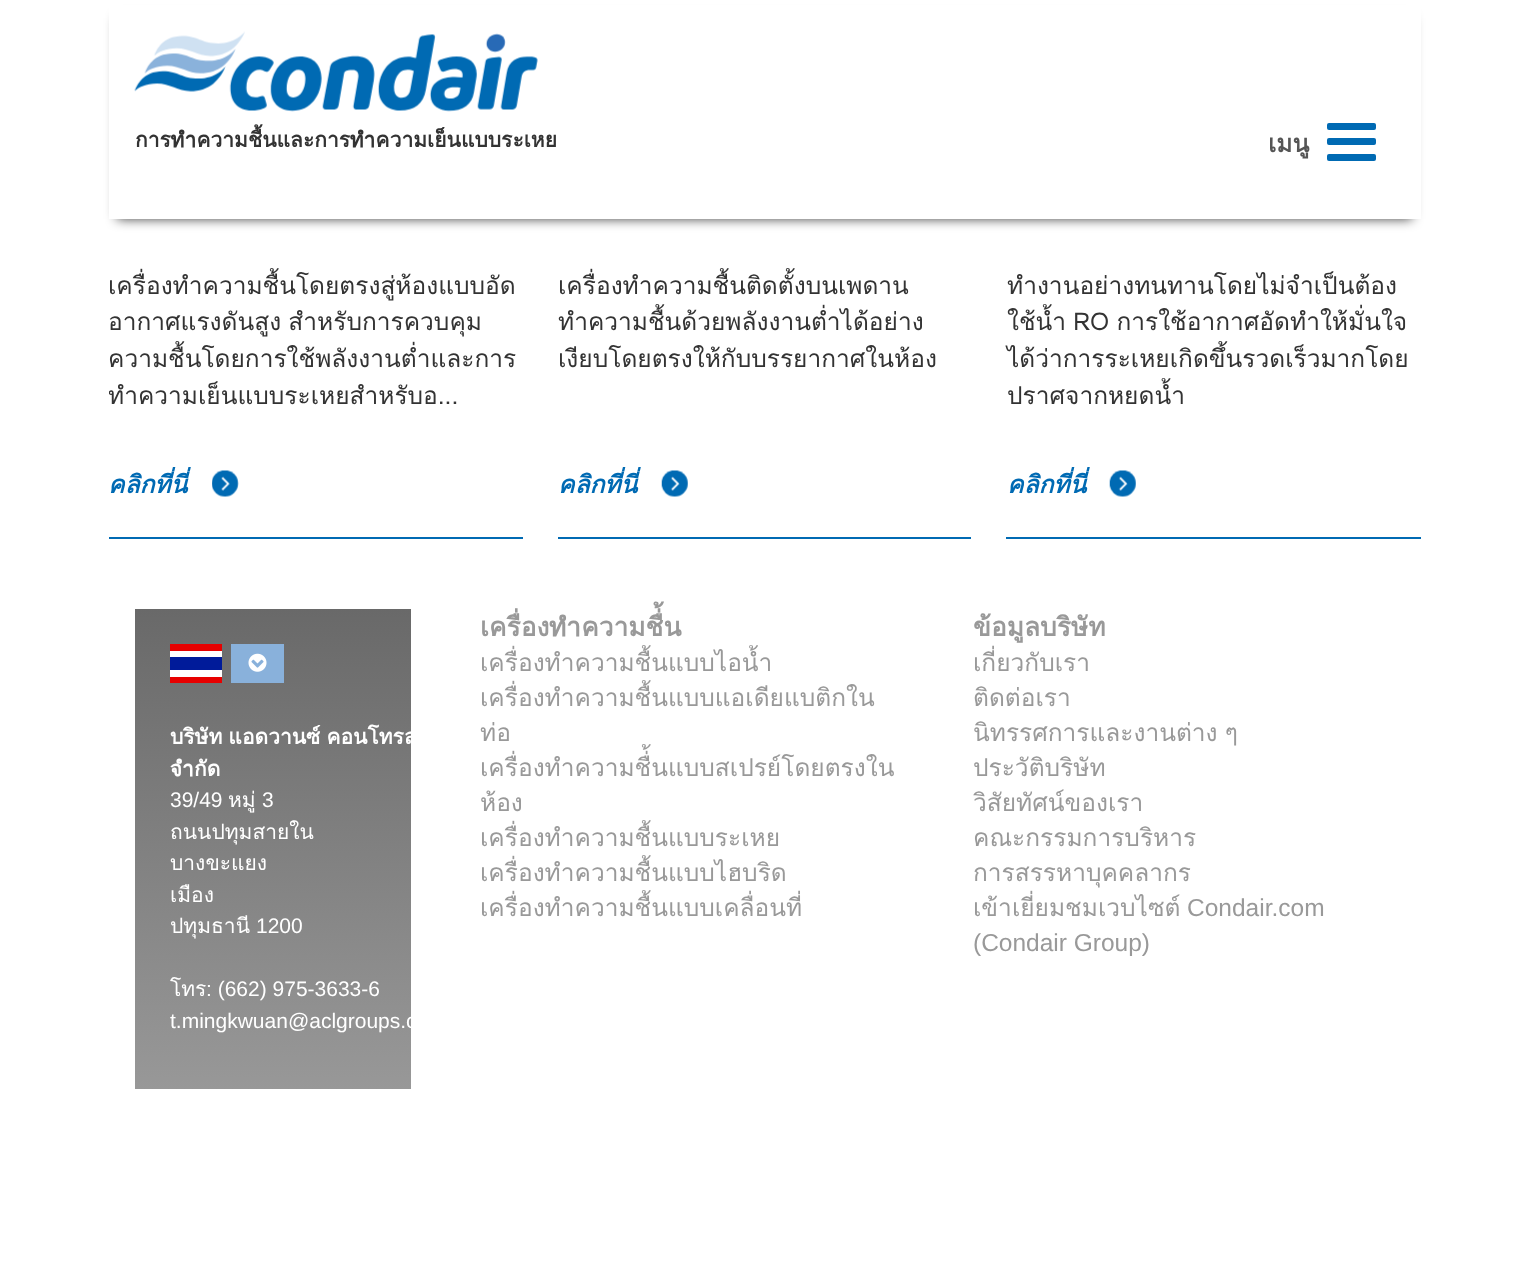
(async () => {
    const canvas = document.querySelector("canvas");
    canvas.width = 1528;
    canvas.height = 1271;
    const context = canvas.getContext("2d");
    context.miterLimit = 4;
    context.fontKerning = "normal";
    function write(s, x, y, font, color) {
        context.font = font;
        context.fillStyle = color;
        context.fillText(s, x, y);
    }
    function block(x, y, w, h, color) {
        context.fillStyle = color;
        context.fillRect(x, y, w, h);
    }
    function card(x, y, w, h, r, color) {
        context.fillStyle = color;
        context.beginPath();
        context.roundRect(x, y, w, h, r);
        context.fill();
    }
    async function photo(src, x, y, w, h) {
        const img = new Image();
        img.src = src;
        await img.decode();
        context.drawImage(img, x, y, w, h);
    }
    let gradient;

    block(0, 0, 1528, 1271, "rgb(255, 255, 255)");
    context.fillStyle = "rgba(0, 0, 0, 0.75)";
    context.filter = "blur(6px)";
    context.beginPath();
    context.rect(117, 18, 1295, 201);
    context.fill();
    context.filter = "none";
    block(109, 5, 1312, 214, "rgb(255, 255, 255)");
    await photo("media/1.png", 134, 31, 404, 81);
    write("การทำความชื้นและการทำความเย็นแบบระเหย", 135, 147, "bold 21px Loma", "rgb(51, 51, 51)");
    write("เมนู", 1268, 152, "bold 24.5px Loma", "rgb(85, 85, 85)");
    card(1327, 123, 49, 7, 2, "rgb(0, 106, 179)");
    card(1327, 138, 49, 7, 2, "rgb(0, 106, 179)");
    card(1327, 154, 49, 7, 2, "rgb(0, 106, 179)");
    block(109, 537, 414, 2, "rgb(0, 106, 179)");
    write("เครื่องทำความชื้นโดยตรงสู่ห้องแบบอัด", 108, 294, "24.5px Loma", "rgb(51, 51, 51)");
    context.wordSpacing = "-1px";
    write("อากาศแรงดันสูง สำหรับการควบคุม", 108, 330, "24.5px Loma", "rgb(51, 51, 51)");
    context.wordSpacing = "0px";
    write("ความชื้นโดยการใช้พลังงานต่ำและการ", 108, 367, "24.5px Loma", "rgb(51, 51, 51)");
    context.save();
    context.beginPath();
    context.rect(109, 0, 1312, 539);
    context.clip();
    write("ทำความเย็นแบบระเหยสำหรับอ...", 108, 404, "24.5px Loma", "rgb(51, 51, 51)");
    context.restore();
    write("คลิกที่นี่", 108, 493, "italic bold 24.5px Loma", "rgb(0, 106, 179)");
    await photo("media/2.png", 212, 470, 27, 27);
    block(558, 537, 413, 2, "rgb(0, 106, 179)");
    write("เครื่องทำความชื้นติดตั้งบนเพดาน", 558, 294, "24.5px Loma", "rgb(51, 51, 51)");
    write("ทำความชื้นด้วยพลังงานต่ำได้อย่าง", 558, 330, "24.5px Loma", "rgb(51, 51, 51)");
    write("เงียบโดยตรงให้กับบรรยากาศในห้อง", 558, 367, "24.5px Loma", "rgb(51, 51, 51)");
    write("คลิกที่นี่", 558, 493, "italic bold 24.5px Loma", "rgb(0, 106, 179)");
    await photo("media/3.png", 661, 470, 27, 27);
    block(1006, 537, 415, 2, "rgb(0, 106, 179)");
    write("ทำงานอย่างทนทานโดยไม่จำเป็นต้อง", 1007, 294, "24.5px Loma", "rgb(51, 51, 51)");
    context.wordSpacing = "-1px";
    write("ใช้น้ำ RO การใช้อากาศอัดทำให้มั่นใจ", 1007, 330, "24.5px Loma", "rgb(51, 51, 51)");
    context.wordSpacing = "0px";
    write("ได้ว่าการระเหยเกิดขึ้นรวดเร็วมากโดย", 1007, 367, "24.5px Loma", "rgb(51, 51, 51)");
    write("ปราศจากหยดน้ำ", 1007, 404, "24.5px Loma", "rgb(51, 51, 51)");
    write("คลิกที่นี่", 1007, 493, "italic bold 24.5px Loma", "rgb(0, 106, 179)");
    await photo("media/3.png", 1109, 470, 27, 27);
    gradient = context.createLinearGradient(273, 609, 273, 1089);
    gradient.addColorStop(0, "rgb(105, 105, 105)");
    gradient.addColorStop(1, "rgb(152, 152, 152)");
    context.fillStyle = gradient;
    context.fillRect(135, 609, 276, 480);
    block(170, 651, 52, 26, "rgb(255, 255, 255)");
    block(170, 657, 52, 13, "rgb(0, 27, 154)");
    block(170, 644, 52, 7, "rgb(231, 0, 0)");
    block(170, 677, 52, 6, "rgb(231, 0, 0)");
    block(231, 644, 53, 39, "rgb(137, 177, 219)");
    await photo("media/4.png", 248, 653, 19, 19);
    context.wordSpacing = "-1px";
    write("บริษัท แอดวานซ์ คอนโทรล", 170, 744, "bold 21px Loma", "rgb(255, 255, 255)");
    context.wordSpacing = "0px";
    write("จำกัด", 170, 776, "bold 21px Loma", "rgb(255, 255, 255)");
    write("39/49", 170, 807, "21px Liberation Sans", "rgb(255, 255, 255)");
    write("หมู่", 228, 807, "21px Loma", "rgb(255, 255, 255)");
    write("3", 262, 807, "21px Liberation Sans", "rgb(255, 255, 255)");
    write("ถนนปทุมสายใน", 170, 839, "21px Loma", "rgb(255, 255, 255)");
    write("บางขะแยง", 170, 870, "21px Loma", "rgb(255, 255, 255)");
    write("เมือง", 170, 902, "21px Loma", "rgb(255, 255, 255)");
    write("ปทุมธานี", 170, 933, "21px Loma", "rgb(255, 255, 255)");
    write("1200", 256, 933, "21px Liberation Sans", "rgb(255, 255, 255)");
    write("โทร", 170, 996, "21px Loma", "rgb(255, 255, 255)");
    write(": (662) 975-3633-6", 206, 996, "21px Liberation Sans", "rgb(255, 255, 255)");
    write("t.mingkwuan@aclgroups.c", 170, 1028, "21px Liberation Sans", "rgb(255, 255, 255)");
    write("เครื่องทำความชื่้น", 480, 636, "bold 26.25px Loma", "rgb(153, 153, 153)");
    write("เครื่องทำความชื้นแบบไอน้ำ", 480, 671, "24.5px Loma", "rgb(153, 153, 153)");
    write("เครื่องทำความชื้นแบบแอเดียแบติกใน", 480, 706, "24.5px Loma", "rgb(153, 153, 153)");
    write("ท่อ", 480, 741, "24.5px Loma", "rgb(153, 153, 153)");
    write("เครื่องทำความชื่้นแบบสเปรย์โดยตรงใน", 480, 776, "24.5px Loma", "rgb(153, 153, 153)");
    write("ห้อง", 480, 811, "24.5px Loma", "rgb(153, 153, 153)");
    write("เครื่องทำความชื้นแบบระเหย", 480, 846, "24.5px Loma", "rgb(153, 153, 153)");
    write("เครื่องทำความชื้นแบบไฮบริด", 480, 881, "24.5px Loma", "rgb(153, 153, 153)");
    write("เครื่องทำความชื้นแบบเคลื่อนที่", 480, 916, "24.5px Loma", "rgb(153, 153, 153)");
    write("ข้อมูลบริษัท", 973, 636, "bold 26.25px Loma", "rgb(153, 153, 153)");
    write("เกี่ยวกับเรา", 973, 671, "24.5px Loma", "rgb(153, 153, 153)");
    write("ติดต่อเรา", 973, 706, "24.5px Loma", "rgb(153, 153, 153)");
    context.wordSpacing = "-1px";
    write("นิทรรศการและงานต่าง ๆ", 973, 741, "24.5px Loma", "rgb(153, 153, 153)");
    context.wordSpacing = "0px";
    write("ประวัติบริษัท", 973, 776, "24.5px Loma", "rgb(153, 153, 153)");
    write("วิสัยทัศน์ของเรา", 973, 811, "24.5px Loma", "rgb(153, 153, 153)");
    write("คณะกรรมการบริหาร", 973, 846, "24.5px Loma", "rgb(153, 153, 153)");
    write("การสรรหาบุคคลากร", 973, 881, "24.5px Loma", "rgb(153, 153, 153)");
    write("เข้าเยี่ยมชมเวบไซต์", 973, 916, "24.5px Loma", "rgb(153, 153, 153)");
    write("Condair.com", 1187, 916, "24.5px Liberation Sans", "rgb(153, 153, 153)");
    write("(Condair Group)", 973, 951, "24.5px Liberation Sans", "rgb(153, 153, 153)");
})();
